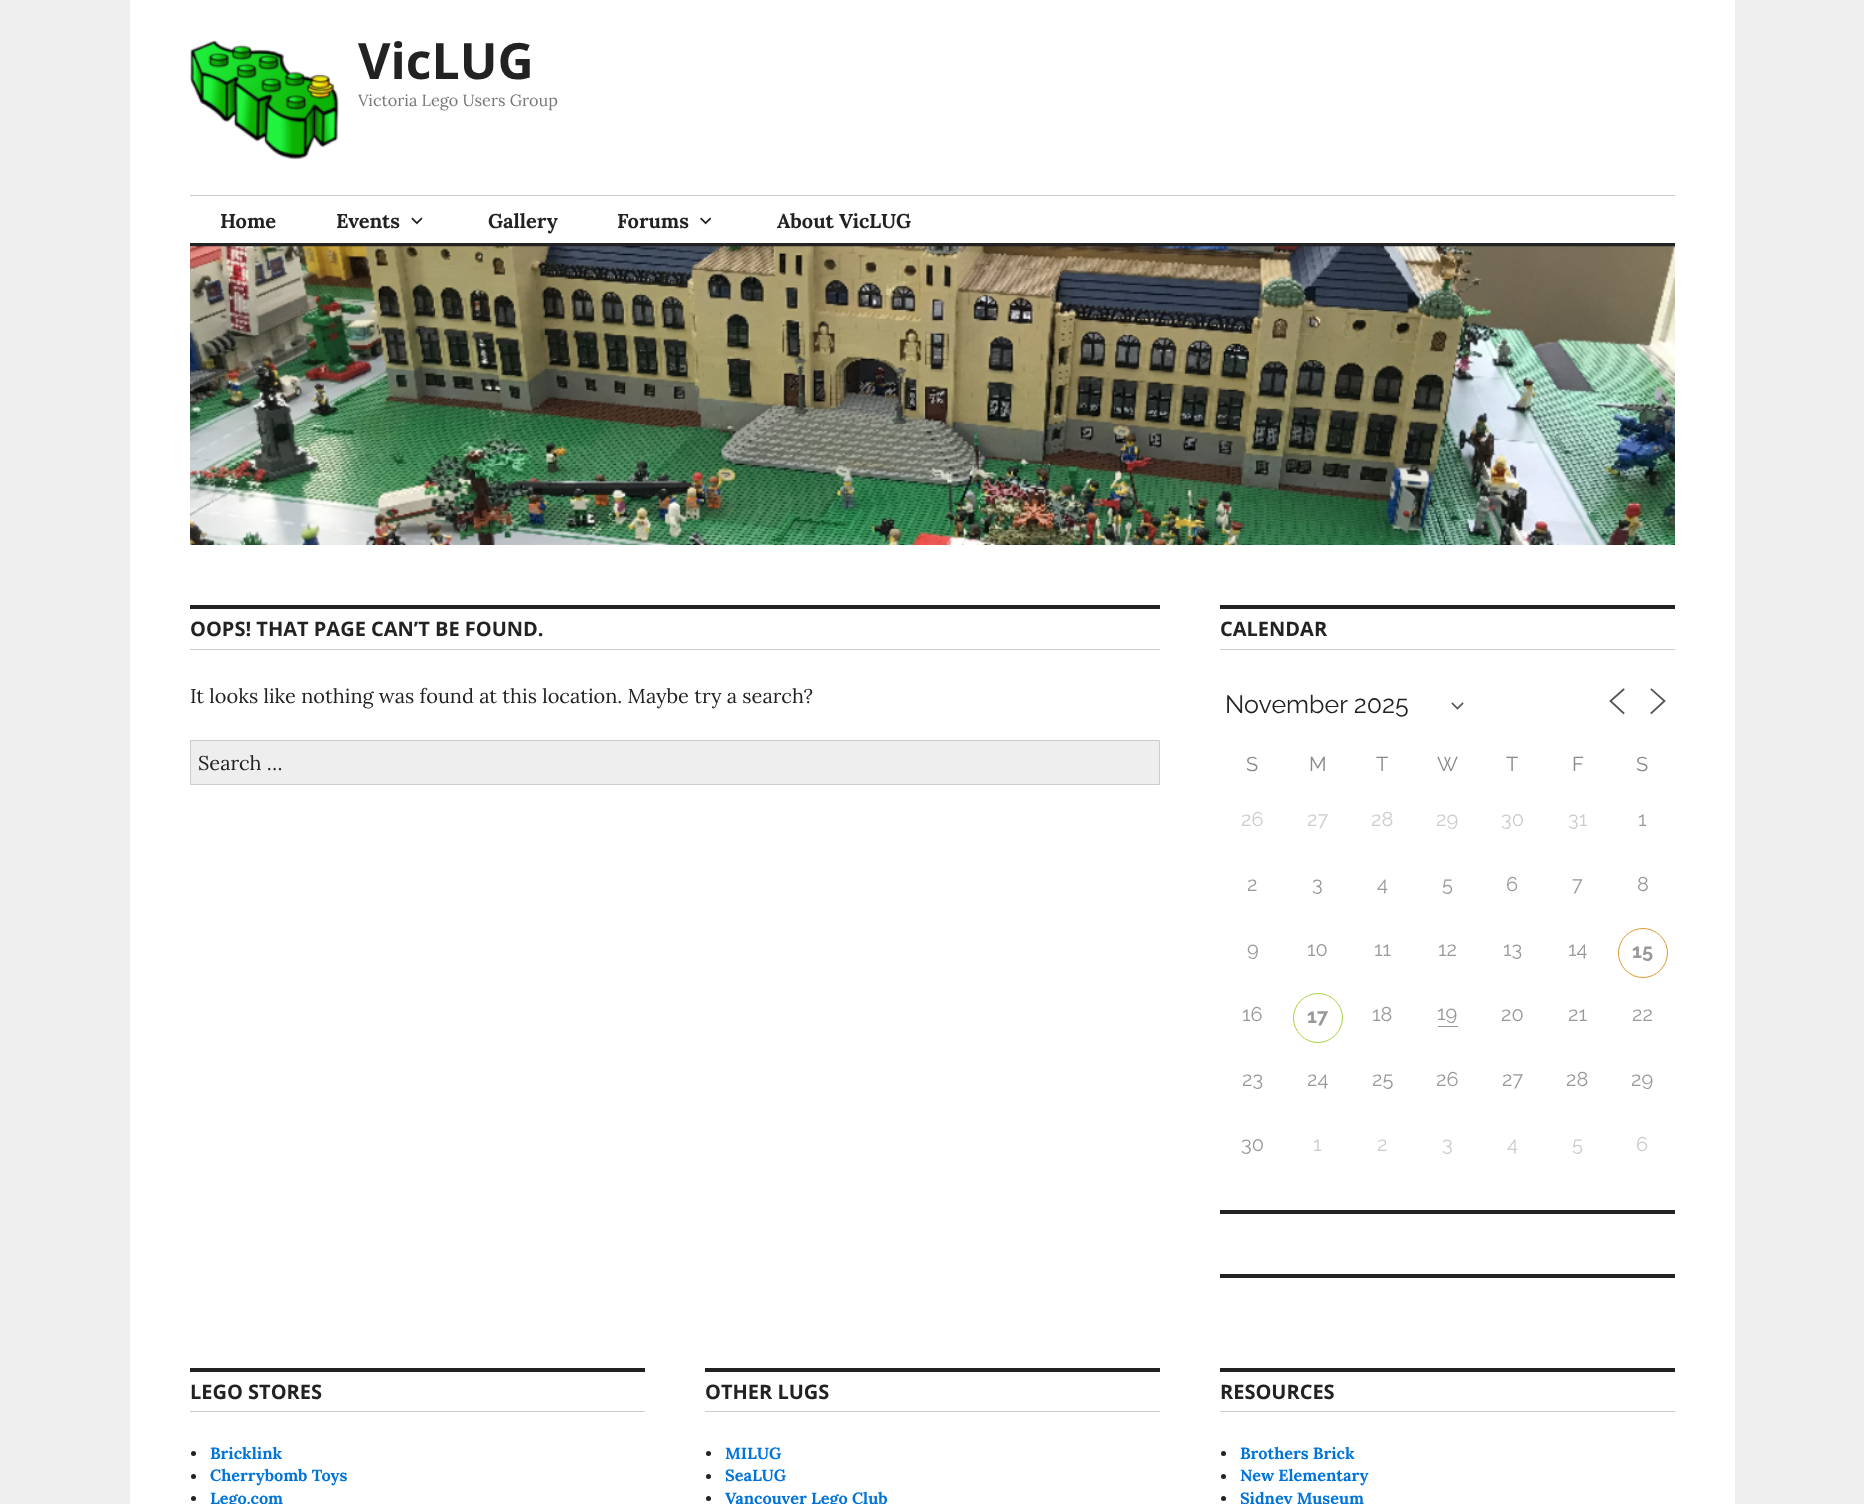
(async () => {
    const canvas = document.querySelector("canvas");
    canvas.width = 1864;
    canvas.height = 1504;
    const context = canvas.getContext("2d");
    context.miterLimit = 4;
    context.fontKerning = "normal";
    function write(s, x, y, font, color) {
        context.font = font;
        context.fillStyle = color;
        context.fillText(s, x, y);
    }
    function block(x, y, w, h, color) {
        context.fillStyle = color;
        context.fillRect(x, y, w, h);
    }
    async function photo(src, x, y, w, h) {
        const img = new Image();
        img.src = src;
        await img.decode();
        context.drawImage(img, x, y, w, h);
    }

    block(0, 0, 1864, 1504, "rgb(239, 239, 239)");
    block(130, 0, 1605, 1504, "rgb(255, 255, 255)");
    await photo("media/1.png", 190, 40, 149, 120);
    write("VicLUG", 358, 79, "bold 50px Open Sans", "rgb(34, 34, 34)");
    write("Victoria Lego Users Group", 358, 106, "16.25px Lora", "rgb(119, 119, 119)");
    block(190, 195, 1485, 1, "rgb(204, 204, 204)");
    block(190, 243, 1485, 4, "rgb(34, 34, 34)");
    write("Home", 220, 228, "bold 20px Lora", "rgb(34, 34, 34)");
    write("Events", 336, 228, "bold 20px Lora", "rgb(34, 34, 34)");
    await photo("media/2.png", 411, 217, 12, 8);
    write("Gallery", 488, 228, "bold 20px Lora", "rgb(34, 34, 34)");
    write("Forums", 617, 228, "bold 20px Lora", "rgb(34, 34, 34)");
    await photo("media/3.png", 700, 217, 12, 8);
    write("About VicLUG", 777, 228, "bold 20px Lora", "rgb(34, 34, 34)");
    await photo("media/4.png", 190, 246, 1485, 299);
    block(190, 605, 970, 4, "rgb(34, 34, 34)");
    block(190, 649, 970, 1, "rgb(204, 204, 204)");
    write("OOPS! THAT PAGE CAN’T BE FOUND.", 190, 636, "bold 20px Open Sans", "rgb(34, 34, 34)");
    write("It looks like nothing was found at this location. Maybe try a search?", 190, 703, "20px Lora", "rgb(34, 34, 34)");
    context.fillStyle = "rgb(238, 238, 238)";
    context.beginPath();
    context.rect(190.5, 740.5, 969, 44);
    context.fill();
    context.strokeStyle = "rgb(204, 204, 204)";
    context.stroke();
    write("Search …", 198, 770, "20px Lora", "rgb(34, 34, 34)");
    block(1220, 605, 455, 4, "rgb(34, 34, 34)");
    block(1220, 649, 455, 1, "rgb(204, 204, 204)");
    write("CALENDAR", 1220, 636, "bold 20px Open Sans", "rgb(34, 34, 34)");
    context.beginPath();
    context.moveTo(1452.5, 703.5);
    context.lineTo(1457.5, 708.5);
    context.lineTo(1462.5, 703.5);
    context.strokeStyle = "rgb(85, 85, 85)";
    context.lineWidth = 1.7;
    context.lineCap = "square";
    context.stroke();
    write("November 2025", 1225, 713, "25px Raleway", "rgb(34, 34, 34)");
    context.beginPath();
    context.moveTo(1623.5, 713);
    context.lineTo(1610.5, 701);
    context.lineTo(1623.5, 689.5);
    context.moveTo(1651.5, 713);
    context.lineTo(1664.5, 701);
    context.lineTo(1651.5, 689.5);
    context.lineWidth = 1.8;
    context.stroke();
    write("S", 1246, 771, "20px Raleway", "rgb(136, 136, 136)");
    write("M", 1309, 771, "20px Raleway", "rgb(136, 136, 136)");
    write("T", 1376, 771, "20px Raleway", "rgb(136, 136, 136)");
    write("W", 1437, 771, "20px Raleway", "rgb(136, 136, 136)");
    write("T", 1506, 771, "20px Raleway", "rgb(136, 136, 136)");
    write("F", 1572, 771, "20px Raleway", "rgb(136, 136, 136)");
    write("S", 1636, 771, "20px Raleway", "rgb(136, 136, 136)");
    write("26", 1241, 826, "20px Raleway", "rgb(204, 204, 204)");
    write("27", 1307, 826, "20px Raleway", "rgb(204, 204, 204)");
    write("28", 1371, 826, "20px Raleway", "rgb(204, 204, 204)");
    write("29", 1436, 826, "20px Raleway", "rgb(204, 204, 204)");
    write("30", 1501, 826, "20px Raleway", "rgb(204, 204, 204)");
    write("31", 1568, 826, "20px Raleway", "rgb(204, 204, 204)");
    write("1", 1638, 826, "20px Raleway", "rgb(153, 153, 153)");
    write("2", 1247, 891, "20px Raleway", "rgb(153, 153, 153)");
    write("3", 1312, 891, "20px Raleway", "rgb(153, 153, 153)");
    write("4", 1377, 891, "20px Raleway", "rgb(153, 153, 153)");
    write("5", 1442, 891, "20px Raleway", "rgb(153, 153, 153)");
    write("6", 1506, 891, "20px Raleway", "rgb(153, 153, 153)");
    write("7", 1572, 891, "20px Raleway", "rgb(153, 153, 153)");
    write("8", 1637, 891, "20px Raleway", "rgb(153, 153, 153)");
    write("9", 1247, 956, "20px Raleway", "rgb(153, 153, 153)");
    write("10", 1307, 956, "20px Raleway", "rgb(153, 153, 153)");
    write("11", 1374, 956, "20px Raleway", "rgb(153, 153, 153)");
    write("12", 1438, 956, "20px Raleway", "rgb(153, 153, 153)");
    write("13", 1503, 956, "20px Raleway", "rgb(153, 153, 153)");
    write("14", 1568, 956, "20px Raleway", "rgb(153, 153, 153)");
    context.beginPath();
    context.arc(1643, 953, 24.5, 0, Math.PI * 2);
    context.strokeStyle = "rgb(221, 153, 51)";
    context.lineWidth = 1;
    context.stroke();
    write("15", 1632, 958, "bold 20px Raleway", "rgb(153, 153, 153)");
    write("16", 1242, 1021, "20px Raleway", "rgb(153, 153, 153)");
    context.beginPath();
    context.arc(1318, 1018, 24.5, 0, Math.PI * 2);
    context.strokeStyle = "rgb(168, 209, 68)";
    context.stroke();
    write("17", 1307, 1023, "bold 20px Raleway", "rgb(153, 153, 153)");
    write("18", 1372, 1021, "20px Raleway", "rgb(153, 153, 153)");
    write("19", 1437, 1020, "20px Raleway", "rgb(153, 153, 153)");
    block(1438, 1026, 20, 1, "rgb(153, 153, 153)");
    write("20", 1501, 1021, "20px Raleway", "rgb(153, 153, 153)");
    write("21", 1568, 1021, "20px Raleway", "rgb(153, 153, 153)");
    write("22", 1632, 1021, "20px Raleway", "rgb(153, 153, 153)");
    write("23", 1242, 1086, "20px Raleway", "rgb(153, 153, 153)");
    write("24", 1307, 1086, "20px Raleway", "rgb(153, 153, 153)");
    write("25", 1372, 1086, "20px Raleway", "rgb(153, 153, 153)");
    write("26", 1436, 1086, "20px Raleway", "rgb(153, 153, 153)");
    write("27", 1502, 1086, "20px Raleway", "rgb(153, 153, 153)");
    write("28", 1566, 1086, "20px Raleway", "rgb(153, 153, 153)");
    write("29", 1631, 1086, "20px Raleway", "rgb(153, 153, 153)");
    write("30", 1241, 1151, "20px Raleway", "rgb(153, 153, 153)");
    write("1", 1313, 1151, "20px Raleway", "rgb(204, 204, 204)");
    write("2", 1377, 1151, "20px Raleway", "rgb(204, 204, 204)");
    write("3", 1442, 1151, "20px Raleway", "rgb(204, 204, 204)");
    write("4", 1507, 1151, "20px Raleway", "rgb(204, 204, 204)");
    write("5", 1572, 1151, "20px Raleway", "rgb(204, 204, 204)");
    write("6", 1636, 1151, "20px Raleway", "rgb(204, 204, 204)");
    block(1220, 1210, 455, 4, "rgb(34, 34, 34)");
    block(1220, 1274, 455, 4, "rgb(34, 34, 34)");
    block(190, 1368, 455, 4, "rgb(34, 34, 34)");
    block(190, 1411, 455, 1, "rgb(204, 204, 204)");
    write("LEGO STORES", 190, 1399, "bold 20px Open Sans", "rgb(34, 34, 34)");
    context.beginPath();
    context.arc(193.5, 1453.5, 2.5, 0, Math.PI * 2);
    context.fill();
    write("Bricklink", 210, 1459, "bold 16.25px Lora", "rgb(0, 116, 217)");
    context.fillStyle = "rgb(34, 34, 34)";
    context.beginPath();
    context.arc(193.5, 1476.5, 2.5, 0, Math.PI * 2);
    context.fill();
    write("Cherrybomb Toys", 210, 1481, "bold 16.25px Lora", "rgb(0, 116, 217)");
    context.fillStyle = "rgb(34, 34, 34)";
    context.beginPath();
    context.arc(193.5, 1498.5, 2.5, 0, Math.PI * 2);
    context.fill();
    write("Lego.com", 210, 1504, "bold 16.25px Lora", "rgb(0, 116, 217)");
    block(705, 1368, 455, 4, "rgb(34, 34, 34)");
    block(705, 1411, 455, 1, "rgb(204, 204, 204)");
    write("OTHER LUGS", 705, 1399, "bold 20px Open Sans", "rgb(34, 34, 34)");
    context.beginPath();
    context.arc(708.5, 1453.5, 2.5, 0, Math.PI * 2);
    context.fill();
    write("MILUG", 725, 1459, "bold 16.25px Lora", "rgb(0, 116, 217)");
    context.fillStyle = "rgb(34, 34, 34)";
    context.beginPath();
    context.arc(708.5, 1476.5, 2.5, 0, Math.PI * 2);
    context.fill();
    write("SeaLUG", 725, 1481, "bold 16.25px Lora", "rgb(0, 116, 217)");
    context.fillStyle = "rgb(34, 34, 34)";
    context.beginPath();
    context.arc(708.5, 1498.5, 2.5, 0, Math.PI * 2);
    context.fill();
    write("Vancouver Lego Club", 725, 1504, "bold 16.25px Lora", "rgb(0, 116, 217)");
    block(1220, 1368, 455, 4, "rgb(34, 34, 34)");
    block(1220, 1411, 455, 1, "rgb(204, 204, 204)");
    write("RESOURCES", 1220, 1399, "bold 20px Open Sans", "rgb(34, 34, 34)");
    context.beginPath();
    context.arc(1223.5, 1453.5, 2.5, 0, Math.PI * 2);
    context.fill();
    write("Brothers Brick", 1240, 1459, "bold 16.25px Lora", "rgb(0, 116, 217)");
    context.fillStyle = "rgb(34, 34, 34)";
    context.beginPath();
    context.arc(1223.5, 1476.5, 2.5, 0, Math.PI * 2);
    context.fill();
    write("New Elementary", 1240, 1481, "bold 16.25px Lora", "rgb(0, 116, 217)");
    context.fillStyle = "rgb(34, 34, 34)";
    context.beginPath();
    context.arc(1223.5, 1498.5, 2.5, 0, Math.PI * 2);
    context.fill();
    write("Sidney Museum", 1240, 1504, "bold 16.25px Lora", "rgb(0, 116, 217)");
})();
